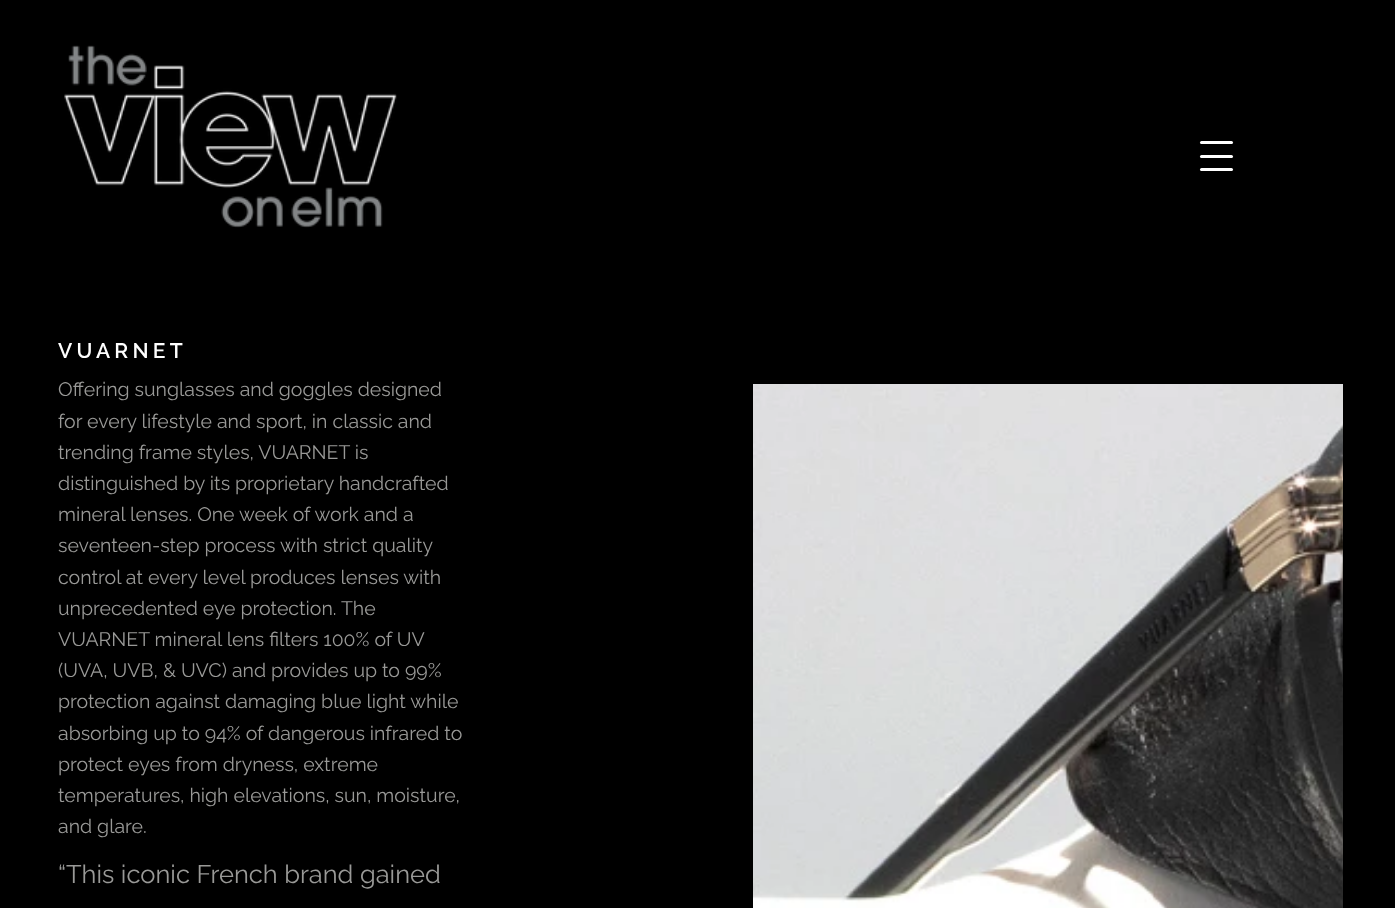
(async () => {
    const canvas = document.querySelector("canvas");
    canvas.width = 1395;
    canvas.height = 908;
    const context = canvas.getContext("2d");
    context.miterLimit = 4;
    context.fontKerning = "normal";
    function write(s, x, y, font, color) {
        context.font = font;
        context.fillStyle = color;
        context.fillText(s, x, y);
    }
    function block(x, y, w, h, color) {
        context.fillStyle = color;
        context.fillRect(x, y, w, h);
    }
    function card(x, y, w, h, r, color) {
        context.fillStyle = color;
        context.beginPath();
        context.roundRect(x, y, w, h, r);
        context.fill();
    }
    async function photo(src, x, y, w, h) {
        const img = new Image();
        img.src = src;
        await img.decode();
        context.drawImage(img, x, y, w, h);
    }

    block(0, 0, 1395, 908, "rgb(0, 0, 0)");
    await photo("media/1.png", 64, 45, 333, 183);
    card(1200, 141, 33, 3, 1.5, "rgb(255, 255, 255)");
    card(1200, 155, 33, 3, 1.5, "rgb(255, 255, 255)");
    card(1200, 168, 33, 3, 1.5, "rgb(255, 255, 255)");
    context.letterSpacing = "4.25px";
    write("VUARNET", 58, 358, "600 21px Raleway", "rgb(255, 255, 255)");
    context.letterSpacing = "0px";
    write("Offering sunglasses and goggles designed", 58, 396, "19.5px Raleway", "rgb(153, 153, 151)");
    write("for every lifestyle and sport, in classic and", 58, 428, "19.5px Raleway", "rgb(153, 153, 151)");
    write("trending frame styles, VUARNET is", 58, 459, "19.5px Raleway", "rgb(153, 153, 151)");
    write("distinguished by its proprietary handcrafted", 58, 490, "19.5px Raleway", "rgb(153, 153, 151)");
    write("mineral lenses. One week of work and a", 58, 521, "19.5px Raleway", "rgb(153, 153, 151)");
    write("seventeen-step process with strict quality", 58, 552, "19.5px Raleway", "rgb(153, 153, 151)");
    write("control at every level produces lenses with", 58, 584, "19.5px Raleway", "rgb(153, 153, 151)");
    write("unprecedented eye protection. The", 58, 615, "19.5px Raleway", "rgb(153, 153, 151)");
    write("VUARNET mineral lens filters 100% of UV", 58, 646, "19.5px Raleway", "rgb(153, 153, 151)");
    write("(UVA, UVB, & UVC) and provides up to 99%", 58, 677, "19.5px Raleway", "rgb(153, 153, 151)");
    write("protection against damaging blue light while", 58, 708, "19.5px Raleway", "rgb(153, 153, 151)");
    write("absorbing up to 94% of dangerous infrared to", 58, 740, "19.5px Raleway", "rgb(153, 153, 151)");
    write("protect eyes from dryness, extreme", 58, 771, "19.5px Raleway", "rgb(153, 153, 151)");
    write("temperatures, high elevations, sun, moisture,", 58, 802, "19.5px Raleway", "rgb(153, 153, 151)");
    write("and glare.", 58, 833, "19.5px Raleway", "rgb(153, 153, 151)");
    await photo("media/2.png", 753, 384, 590, 524);
    write("“This iconic French brand gained", 58, 883, "25.5px Raleway", "rgb(153, 153, 151)");
})();
